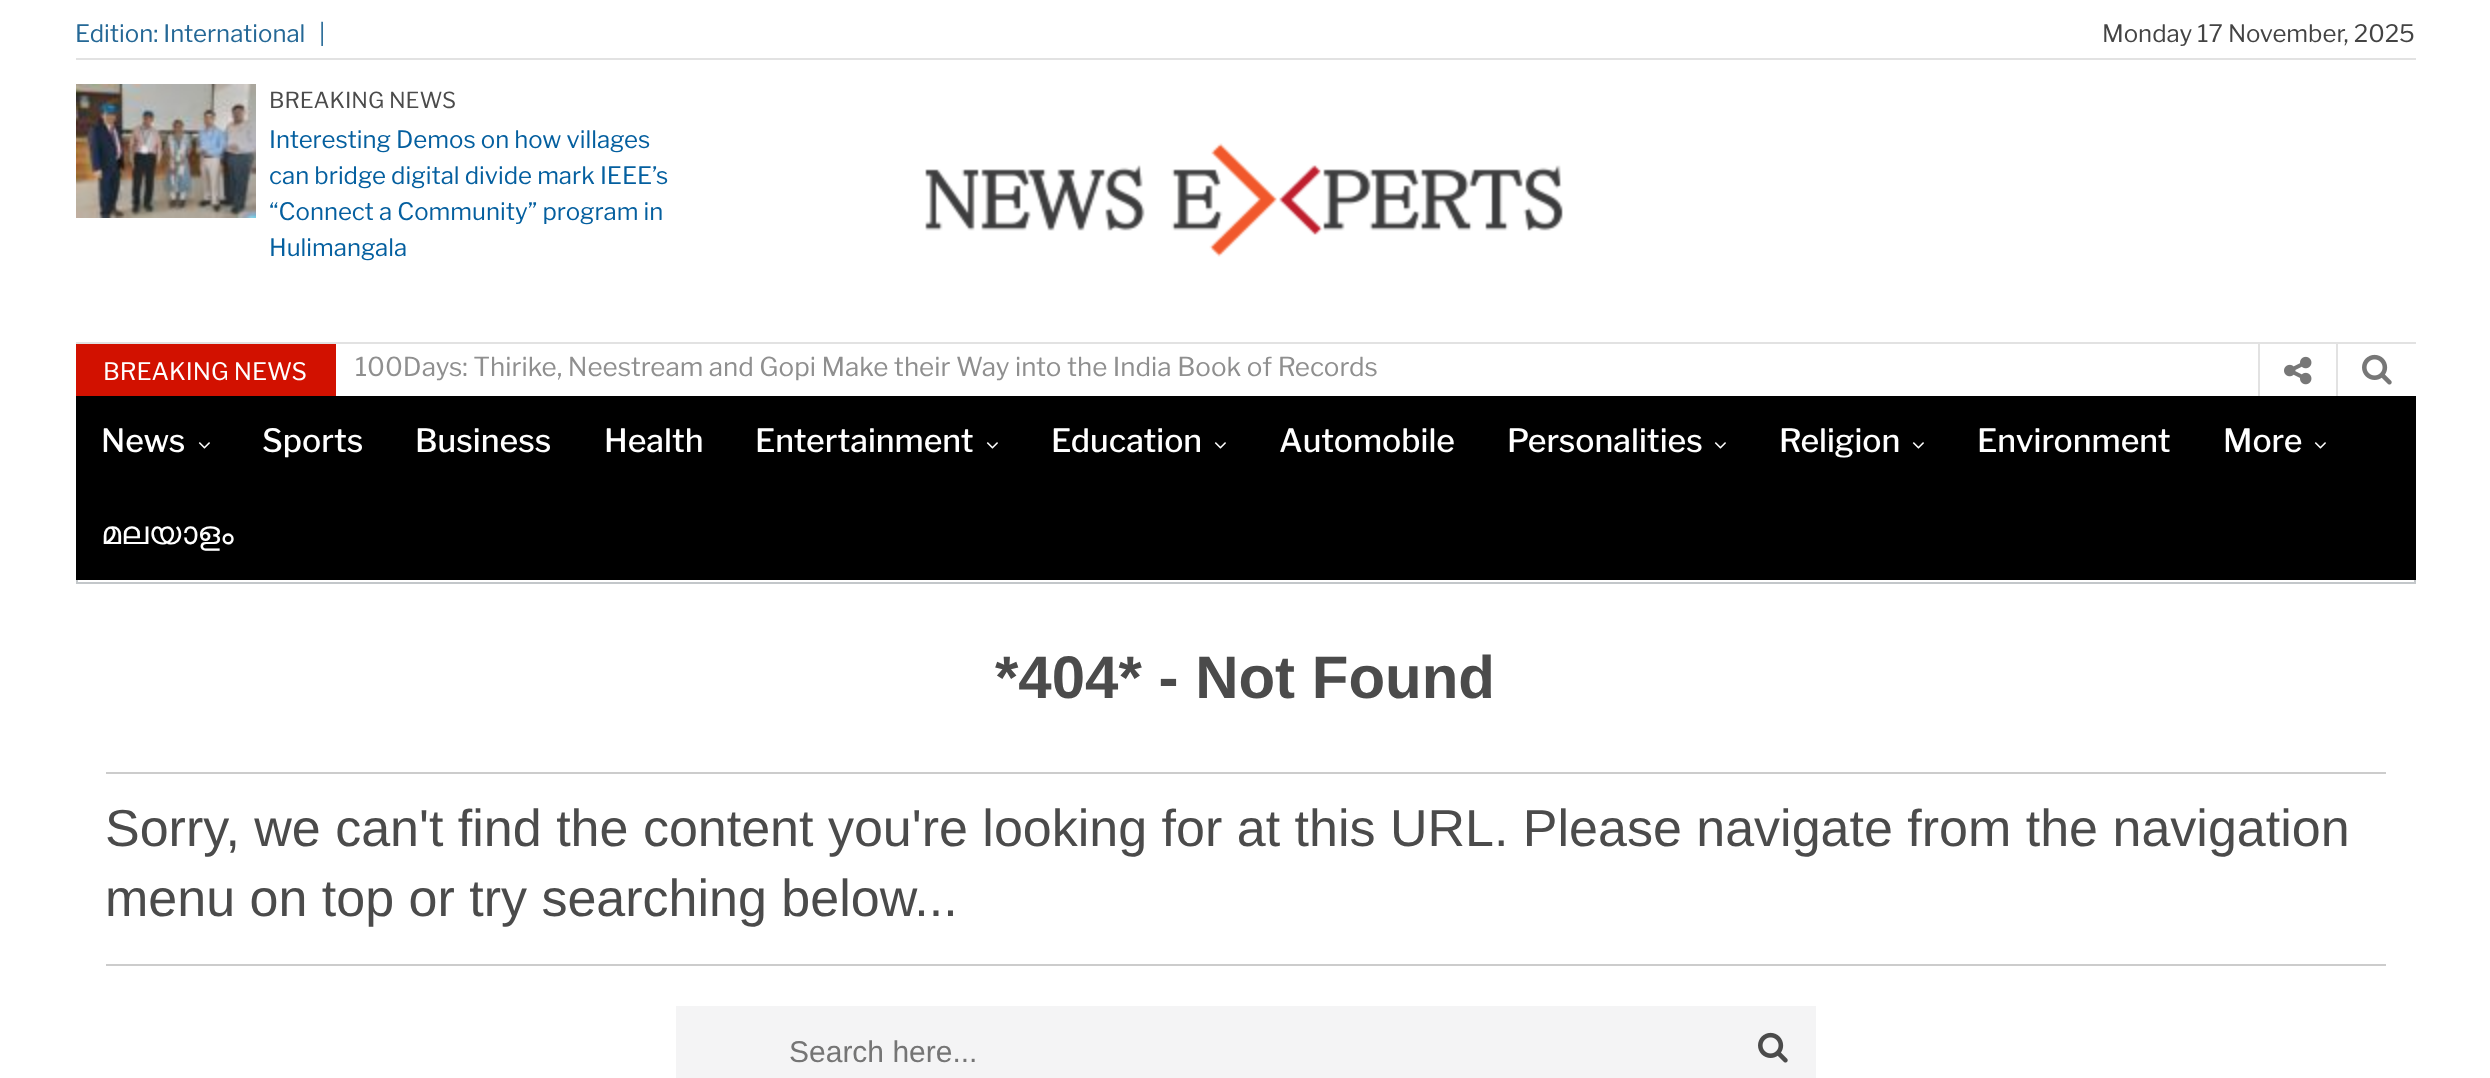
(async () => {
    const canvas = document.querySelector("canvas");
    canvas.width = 2490;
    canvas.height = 1078;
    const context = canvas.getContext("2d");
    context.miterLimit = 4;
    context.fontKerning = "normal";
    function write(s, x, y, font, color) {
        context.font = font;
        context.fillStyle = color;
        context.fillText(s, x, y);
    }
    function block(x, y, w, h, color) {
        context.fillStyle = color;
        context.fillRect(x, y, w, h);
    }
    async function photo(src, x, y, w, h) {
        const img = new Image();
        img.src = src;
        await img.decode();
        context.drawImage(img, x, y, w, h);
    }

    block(0, 0, 2490, 1078, "rgb(255, 255, 255)");
    block(76, 58, 2340, 2, "rgb(226, 226, 226)");
    write("Edition: International", 75, 42, "24px Libre Franklin", "rgb(37, 104, 150)");
    write("|", 319, 42, "24px Libre Franklin", "rgb(37, 104, 150)");
    write("Monday 17 November, 2025", 2102, 42, "24px Libre Franklin", "rgb(68, 68, 68)");
    await photo("media/1.png", 76, 84, 180, 134);
    write("BREAKING NEWS", 269, 108, "22px Libre Franklin", "rgb(75, 75, 75)");
    write("Interesting Demos on how villages", 269, 148, "24px Libre Franklin", "rgb(4, 95, 159)");
    write("can bridge digital divide mark IEEE’s", 269, 184, "24px Libre Franklin", "rgb(4, 95, 159)");
    write("“Connect a Community” program in", 269, 220, "24px Libre Franklin", "rgb(4, 95, 159)");
    write("Hulimangala", 269, 256, "24px Libre Franklin", "rgb(4, 95, 159)");
    await photo("media/2.png", 925, 143, 638, 114);
    block(76, 342, 2340, 2, "rgb(226, 226, 226)");
    block(76, 344, 260, 52, "rgb(210, 17, 0)");
    write("BREAKING NEWS", 103, 380, "24px Libre Franklin", "rgb(255, 255, 255)");
    write("100Days: Thirike, Neestream and Gopi Make their Way into the India Book of Records", 355, 376, "26px Libre Franklin", "rgb(143, 143, 143)");
    block(2258, 344, 2, 52, "rgb(226, 226, 226)");
    await photo("media/3.png", 2284, 356, 28, 29);
    block(2336, 344, 2, 52, "rgb(226, 226, 226)");
    await photo("media/4.png", 2362, 354, 30, 31);
    block(76, 396, 2340, 184, "rgb(0, 0, 0)");
    write("News", 101, 452, "500 32px Libre Franklin", "rgb(255, 255, 255)");
    await photo("media/5.png", 198, 442, 12, 7);
    write("Sports", 262, 452, "500 32px Libre Franklin", "rgb(255, 255, 255)");
    write("Business", 415, 452, "500 32px Libre Franklin", "rgb(255, 255, 255)");
    write("Health", 604, 452, "500 32px Libre Franklin", "rgb(255, 255, 255)");
    write("Entertainment", 755, 452, "500 32px Libre Franklin", "rgb(255, 255, 255)");
    await photo("media/5.png", 986, 442, 12, 7);
    write("Education", 1051, 452, "500 32px Libre Franklin", "rgb(255, 255, 255)");
    await photo("media/5.png", 1214, 442, 12, 7);
    write("Automobile", 1279, 452, "500 32px Libre Franklin", "rgb(255, 255, 255)");
    write("Personalities", 1507, 452, "500 32px Libre Franklin", "rgb(255, 255, 255)");
    await photo("media/5.png", 1714, 442, 12, 7);
    write("Religion", 1779, 452, "500 32px Libre Franklin", "rgb(255, 255, 255)");
    await photo("media/5.png", 1912, 442, 12, 7);
    write("Environment", 1977, 452, "500 32px Libre Franklin", "rgb(255, 255, 255)");
    write("More", 2223, 452, "500 32px Libre Franklin", "rgb(255, 255, 255)");
    await photo("media/5.png", 2314, 442, 12, 7);
    write("മലയാളം", 101, 544, "32px FreeSans", "rgb(255, 255, 255)");
    block(2414, 580, 2, 4, "rgb(195, 199, 202)");
    block(76, 582, 2340, 2, "rgb(195, 199, 202)");
    block(76, 580, 2, 4, "rgb(195, 199, 202)");
    write("*404* - Not Found", 995, 698, "bold 60px Liberation Sans", "rgb(75, 75, 75)");
    block(106, 772, 2280, 2, "rgb(204, 204, 204)");
    block(106, 964, 2280, 2, "rgb(204, 204, 204)");
    write("Sorry, we can't find the content you're looking for at this URL. Please navigate from the navigation", 105, 846, "52px Liberation Sans", "rgb(75, 75, 75)");
    write("menu on top or try searching below...", 105, 916, "52px Liberation Sans", "rgb(75, 75, 75)");
    block(676, 1006, 1140, 72, "rgb(244, 244, 245)");
    write("Search here...", 789, 1062, "30px Liberation Sans", "rgb(117, 117, 117)");
    await photo("media/6.png", 1758, 1032, 30, 31);
})();
